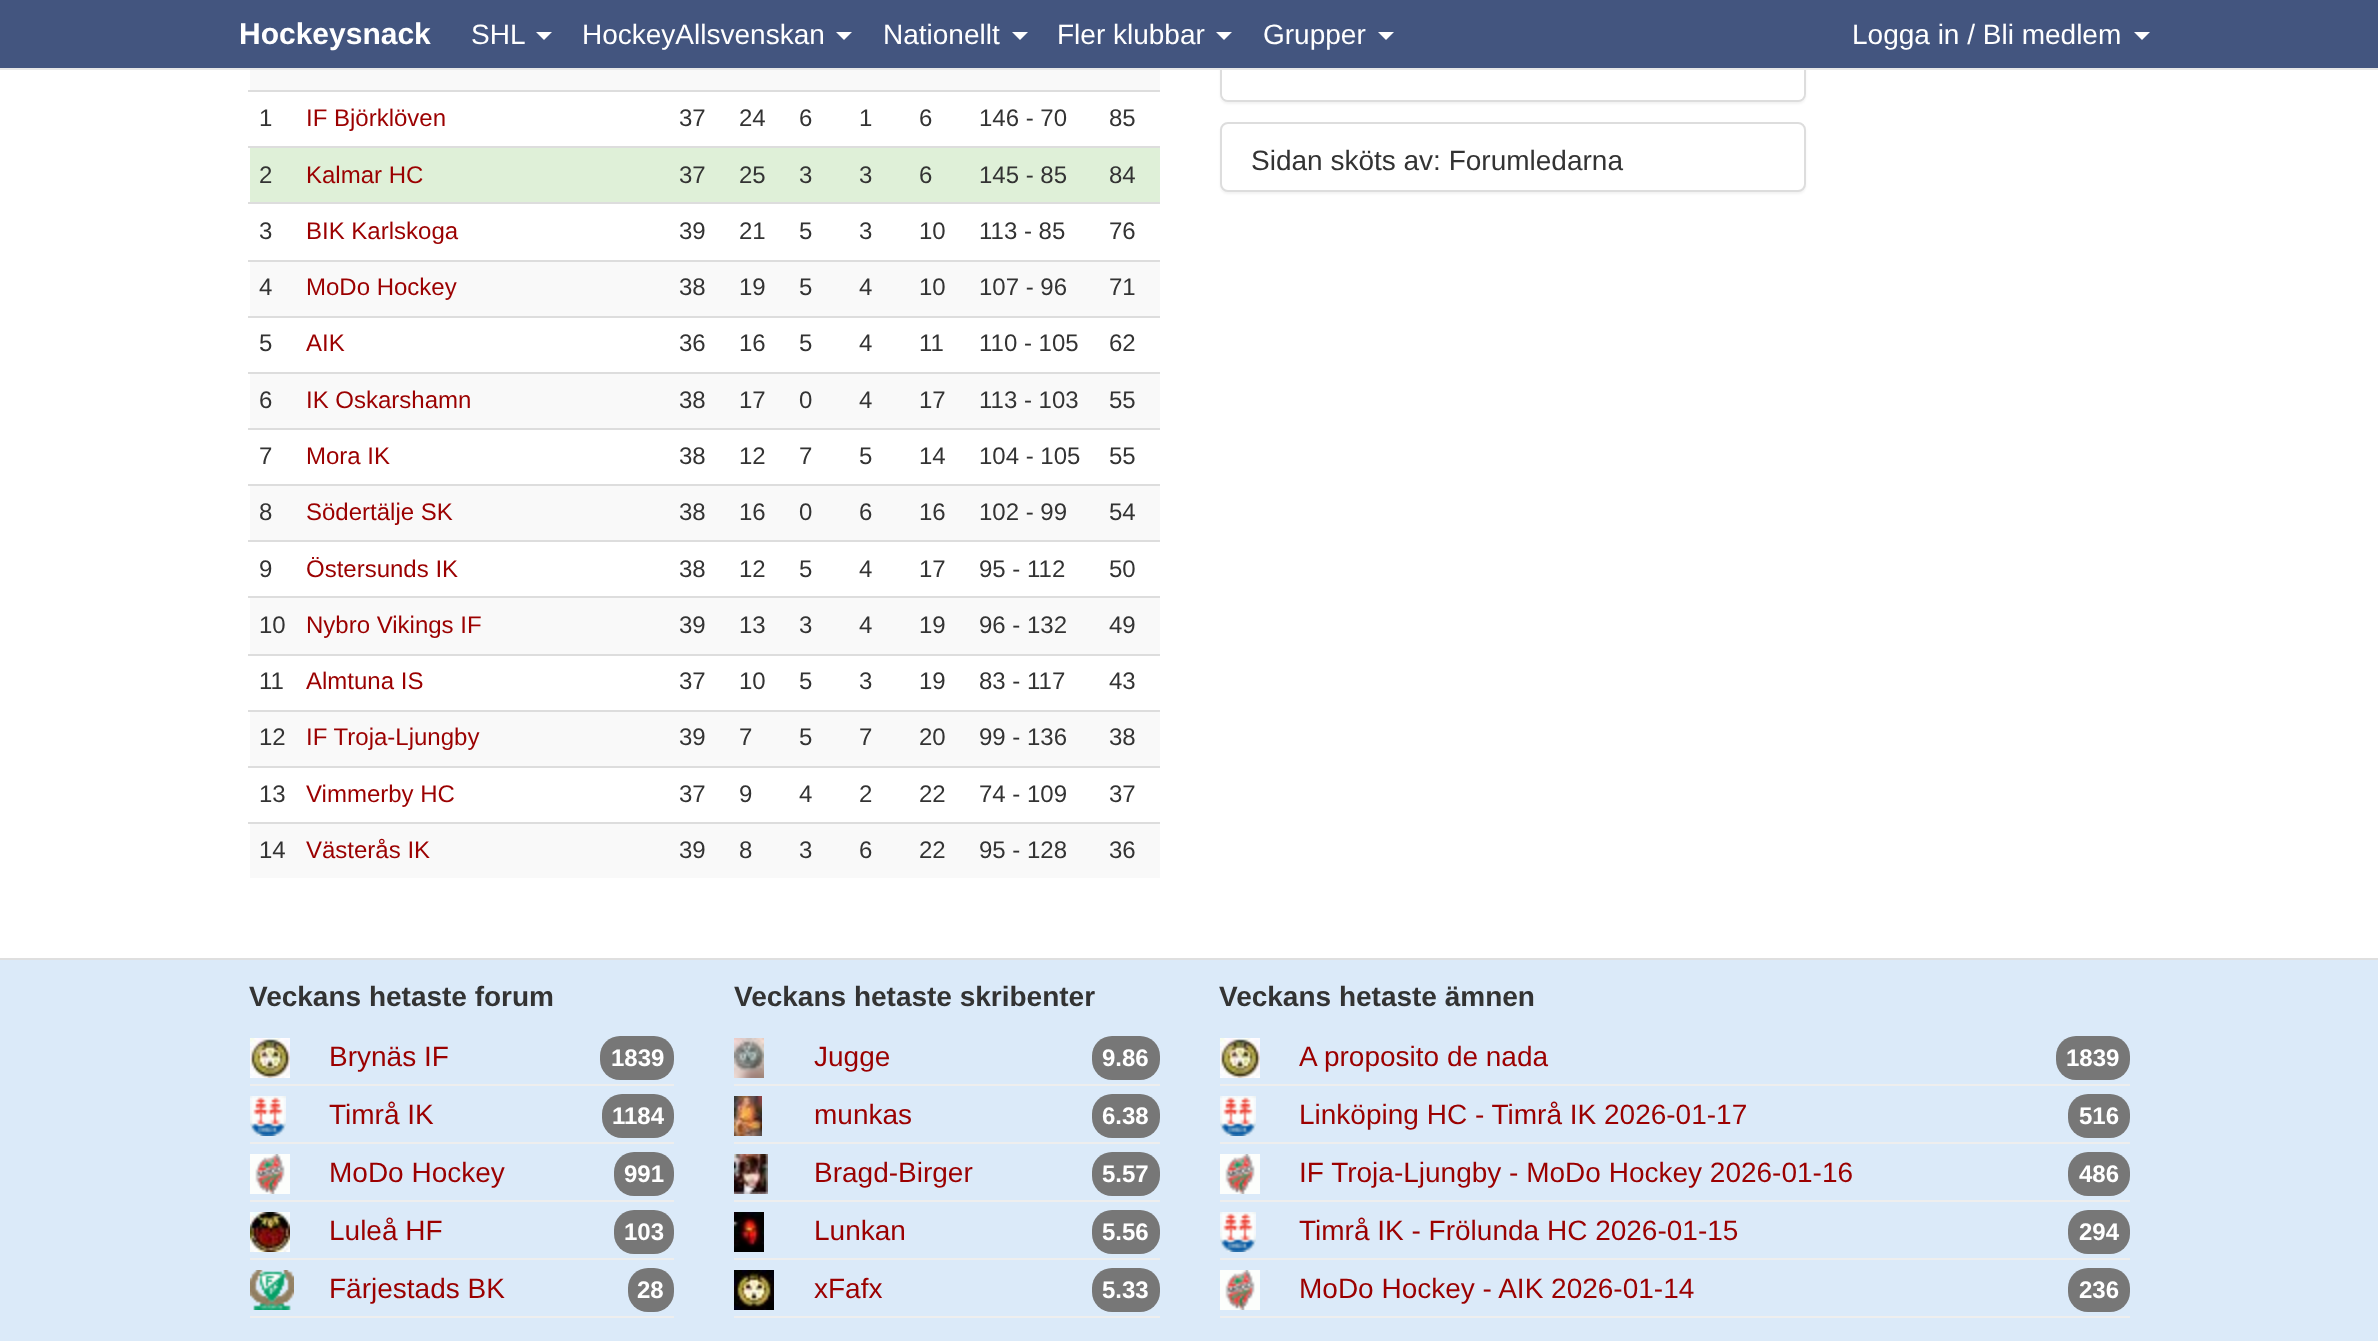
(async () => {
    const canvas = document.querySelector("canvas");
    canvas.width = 2378;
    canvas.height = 1341;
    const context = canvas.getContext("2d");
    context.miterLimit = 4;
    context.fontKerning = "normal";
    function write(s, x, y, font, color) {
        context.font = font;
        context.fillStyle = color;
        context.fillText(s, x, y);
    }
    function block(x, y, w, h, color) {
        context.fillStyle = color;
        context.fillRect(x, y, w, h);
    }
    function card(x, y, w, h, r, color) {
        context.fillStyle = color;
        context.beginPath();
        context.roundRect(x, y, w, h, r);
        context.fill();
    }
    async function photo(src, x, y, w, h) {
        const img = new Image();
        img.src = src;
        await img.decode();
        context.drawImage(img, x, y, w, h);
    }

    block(0, 0, 2378, 1341, "rgb(255, 255, 255)");
    context.fillStyle = "rgba(0, 0, 0, 0.05)";
    context.filter = "blur(1px)";
    context.beginPath();
    context.roundRect(1220, -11, 586, 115, 8);
    context.fill();
    context.filter = "none";
    context.beginPath();
    context.roundRect(1221, -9, 584, 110, 7);
    context.strokeStyle = "rgb(221, 221, 221)";
    context.lineWidth = 2;
    context.stroke();
    context.fillStyle = "rgb(255, 255, 255)";
    context.beginPath();
    context.roundRect(1222, 32, 582, 68, [0, 0, 6, 6]);
    context.fill();
    block(0, 0, 2378, 68, "rgb(67, 85, 127)");
    block(0, 68, 2378, 2, "rgb(231, 231, 231)");
    write("Hockeysnack", 239, 44, "bold 30px Liberation Sans", "rgb(255, 255, 255)");
    write("SHL", 471, 44, "28px Liberation Sans", "rgb(255, 255, 255)");
    context.beginPath();
    context.moveTo(536, 32);
    context.lineTo(552, 32);
    context.lineTo(544, 40);
    context.closePath();
    context.fill();
    write("HockeyAllsvenskan", 582, 44, "28px Liberation Sans", "rgb(255, 255, 255)");
    context.beginPath();
    context.moveTo(836, 32);
    context.lineTo(852, 32);
    context.lineTo(844, 40);
    context.closePath();
    context.fill();
    write("Nationellt", 883, 44, "28px Liberation Sans", "rgb(255, 255, 255)");
    context.beginPath();
    context.moveTo(1012, 32);
    context.lineTo(1028, 32);
    context.lineTo(1020, 40);
    context.closePath();
    context.fill();
    write("Fler klubbar", 1057, 44, "28px Liberation Sans", "rgb(255, 255, 255)");
    context.beginPath();
    context.moveTo(1216, 32);
    context.lineTo(1232, 32);
    context.lineTo(1224, 40);
    context.closePath();
    context.fill();
    write("Grupper", 1263, 44, "28px Liberation Sans", "rgb(255, 255, 255)");
    context.beginPath();
    context.moveTo(1378, 32);
    context.lineTo(1394, 32);
    context.lineTo(1386, 40);
    context.closePath();
    context.fill();
    write("Logga in / Bli medlem", 1852, 44, "28px Liberation Sans", "rgb(255, 255, 255)");
    context.beginPath();
    context.moveTo(2134, 32);
    context.lineTo(2150, 32);
    context.lineTo(2142, 40);
    context.closePath();
    context.fill();
    block(250, 70, 910, 20, "rgb(249, 249, 249)");
    write("1", 259, 126, "24px Liberation Sans", "rgb(51, 51, 51)");
    write("IF Björklöven", 306, 126, "24px Liberation Sans", "rgb(155, 0, 0)");
    write("37", 679, 126, "24px Liberation Sans", "rgb(51, 51, 51)");
    write("24", 739, 126, "24px Liberation Sans", "rgb(51, 51, 51)");
    write("6", 799, 126, "24px Liberation Sans", "rgb(51, 51, 51)");
    write("1", 859, 126, "24px Liberation Sans", "rgb(51, 51, 51)");
    write("6", 919, 126, "24px Liberation Sans", "rgb(51, 51, 51)");
    write("146 - 70", 979, 126, "24px Liberation Sans", "rgb(51, 51, 51)");
    block(248, 90, 912, 2, "rgb(221, 221, 221)");
    write("85", 1109, 126, "24px Liberation Sans", "rgb(51, 51, 51)");
    block(250, 148, 910, 54, "rgb(223, 240, 216)");
    write("2", 259, 183, "24px Liberation Sans", "rgb(51, 51, 51)");
    write("Kalmar HC", 306, 183, "24px Liberation Sans", "rgb(155, 0, 0)");
    write("37", 679, 183, "24px Liberation Sans", "rgb(51, 51, 51)");
    write("25", 739, 183, "24px Liberation Sans", "rgb(51, 51, 51)");
    write("3", 799, 183, "24px Liberation Sans", "rgb(51, 51, 51)");
    write("3", 859, 183, "24px Liberation Sans", "rgb(51, 51, 51)");
    write("6", 919, 183, "24px Liberation Sans", "rgb(51, 51, 51)");
    write("145 - 85", 979, 183, "24px Liberation Sans", "rgb(51, 51, 51)");
    block(248, 146, 912, 2, "rgb(221, 221, 221)");
    write("84", 1109, 183, "24px Liberation Sans", "rgb(51, 51, 51)");
    write("3", 259, 239, "24px Liberation Sans", "rgb(51, 51, 51)");
    write("BIK Karlskoga", 306, 239, "24px Liberation Sans", "rgb(155, 0, 0)");
    write("39", 679, 239, "24px Liberation Sans", "rgb(51, 51, 51)");
    write("21", 739, 239, "24px Liberation Sans", "rgb(51, 51, 51)");
    write("5", 799, 239, "24px Liberation Sans", "rgb(51, 51, 51)");
    write("3", 859, 239, "24px Liberation Sans", "rgb(51, 51, 51)");
    write("10", 919, 239, "24px Liberation Sans", "rgb(51, 51, 51)");
    write("113 - 85", 979, 239, "24px Liberation Sans", "rgb(51, 51, 51)");
    block(248, 202, 912, 2, "rgb(221, 221, 221)");
    write("76", 1109, 239, "24px Liberation Sans", "rgb(51, 51, 51)");
    block(250, 262, 910, 54, "rgb(249, 249, 249)");
    write("4", 259, 295, "24px Liberation Sans", "rgb(51, 51, 51)");
    write("MoDo Hockey", 306, 295, "24px Liberation Sans", "rgb(155, 0, 0)");
    write("38", 679, 295, "24px Liberation Sans", "rgb(51, 51, 51)");
    write("19", 739, 295, "24px Liberation Sans", "rgb(51, 51, 51)");
    write("5", 799, 295, "24px Liberation Sans", "rgb(51, 51, 51)");
    write("4", 859, 295, "24px Liberation Sans", "rgb(51, 51, 51)");
    write("10", 919, 295, "24px Liberation Sans", "rgb(51, 51, 51)");
    write("107 - 96", 979, 295, "24px Liberation Sans", "rgb(51, 51, 51)");
    block(248, 260, 912, 2, "rgb(221, 221, 221)");
    write("71", 1109, 295, "24px Liberation Sans", "rgb(51, 51, 51)");
    write("5", 259, 351, "24px Liberation Sans", "rgb(51, 51, 51)");
    write("AIK", 306, 351, "24px Liberation Sans", "rgb(155, 0, 0)");
    write("36", 679, 351, "24px Liberation Sans", "rgb(51, 51, 51)");
    write("16", 739, 351, "24px Liberation Sans", "rgb(51, 51, 51)");
    write("5", 799, 351, "24px Liberation Sans", "rgb(51, 51, 51)");
    write("4", 859, 351, "24px Liberation Sans", "rgb(51, 51, 51)");
    write("11", 919, 351, "24px Liberation Sans", "rgb(51, 51, 51)");
    write("110 - 105", 979, 351, "24px Liberation Sans", "rgb(51, 51, 51)");
    block(248, 316, 912, 2, "rgb(221, 221, 221)");
    write("62", 1109, 351, "24px Liberation Sans", "rgb(51, 51, 51)");
    block(250, 374, 910, 54, "rgb(249, 249, 249)");
    write("6", 259, 408, "24px Liberation Sans", "rgb(51, 51, 51)");
    write("IK Oskarshamn", 306, 408, "24px Liberation Sans", "rgb(155, 0, 0)");
    write("38", 679, 408, "24px Liberation Sans", "rgb(51, 51, 51)");
    write("17", 739, 408, "24px Liberation Sans", "rgb(51, 51, 51)");
    write("0", 799, 408, "24px Liberation Sans", "rgb(51, 51, 51)");
    write("4", 859, 408, "24px Liberation Sans", "rgb(51, 51, 51)");
    write("17", 919, 408, "24px Liberation Sans", "rgb(51, 51, 51)");
    write("113 - 103", 979, 408, "24px Liberation Sans", "rgb(51, 51, 51)");
    block(248, 372, 912, 2, "rgb(221, 221, 221)");
    write("55", 1109, 408, "24px Liberation Sans", "rgb(51, 51, 51)");
    write("7", 259, 464, "24px Liberation Sans", "rgb(51, 51, 51)");
    write("Mora IK", 306, 464, "24px Liberation Sans", "rgb(155, 0, 0)");
    write("38", 679, 464, "24px Liberation Sans", "rgb(51, 51, 51)");
    write("12", 739, 464, "24px Liberation Sans", "rgb(51, 51, 51)");
    write("7", 799, 464, "24px Liberation Sans", "rgb(51, 51, 51)");
    write("5", 859, 464, "24px Liberation Sans", "rgb(51, 51, 51)");
    write("14", 919, 464, "24px Liberation Sans", "rgb(51, 51, 51)");
    write("104 - 105", 979, 464, "24px Liberation Sans", "rgb(51, 51, 51)");
    block(248, 428, 912, 2, "rgb(221, 221, 221)");
    write("55", 1109, 464, "24px Liberation Sans", "rgb(51, 51, 51)");
    block(250, 486, 910, 54, "rgb(249, 249, 249)");
    write("8", 259, 520, "24px Liberation Sans", "rgb(51, 51, 51)");
    write("Södertälje SK", 306, 520, "24px Liberation Sans", "rgb(155, 0, 0)");
    write("38", 679, 520, "24px Liberation Sans", "rgb(51, 51, 51)");
    write("16", 739, 520, "24px Liberation Sans", "rgb(51, 51, 51)");
    write("0", 799, 520, "24px Liberation Sans", "rgb(51, 51, 51)");
    write("6", 859, 520, "24px Liberation Sans", "rgb(51, 51, 51)");
    write("16", 919, 520, "24px Liberation Sans", "rgb(51, 51, 51)");
    write("102 - 99", 979, 520, "24px Liberation Sans", "rgb(51, 51, 51)");
    block(248, 484, 912, 2, "rgb(221, 221, 221)");
    write("54", 1109, 520, "24px Liberation Sans", "rgb(51, 51, 51)");
    write("9", 259, 577, "24px Liberation Sans", "rgb(51, 51, 51)");
    write("Östersunds IK", 306, 577, "24px Liberation Sans", "rgb(155, 0, 0)");
    write("38", 679, 577, "24px Liberation Sans", "rgb(51, 51, 51)");
    write("12", 739, 577, "24px Liberation Sans", "rgb(51, 51, 51)");
    write("5", 799, 577, "24px Liberation Sans", "rgb(51, 51, 51)");
    write("4", 859, 577, "24px Liberation Sans", "rgb(51, 51, 51)");
    write("17", 919, 577, "24px Liberation Sans", "rgb(51, 51, 51)");
    write("95 - 112", 979, 577, "24px Liberation Sans", "rgb(51, 51, 51)");
    block(248, 540, 912, 2, "rgb(221, 221, 221)");
    write("50", 1109, 577, "24px Liberation Sans", "rgb(51, 51, 51)");
    block(250, 598, 910, 56, "rgb(249, 249, 249)");
    write("10", 259, 633, "24px Liberation Sans", "rgb(51, 51, 51)");
    write("Nybro Vikings IF", 306, 633, "24px Liberation Sans", "rgb(155, 0, 0)");
    write("39", 679, 633, "24px Liberation Sans", "rgb(51, 51, 51)");
    write("13", 739, 633, "24px Liberation Sans", "rgb(51, 51, 51)");
    write("3", 799, 633, "24px Liberation Sans", "rgb(51, 51, 51)");
    write("4", 859, 633, "24px Liberation Sans", "rgb(51, 51, 51)");
    write("19", 919, 633, "24px Liberation Sans", "rgb(51, 51, 51)");
    write("96 - 132", 979, 633, "24px Liberation Sans", "rgb(51, 51, 51)");
    block(248, 596, 912, 2, "rgb(221, 221, 221)");
    write("49", 1109, 633, "24px Liberation Sans", "rgb(51, 51, 51)");
    write("11", 259, 689, "24px Liberation Sans", "rgb(51, 51, 51)");
    write("Almtuna IS", 306, 689, "24px Liberation Sans", "rgb(155, 0, 0)");
    write("37", 679, 689, "24px Liberation Sans", "rgb(51, 51, 51)");
    write("10", 739, 689, "24px Liberation Sans", "rgb(51, 51, 51)");
    write("5", 799, 689, "24px Liberation Sans", "rgb(51, 51, 51)");
    write("3", 859, 689, "24px Liberation Sans", "rgb(51, 51, 51)");
    write("19", 919, 689, "24px Liberation Sans", "rgb(51, 51, 51)");
    write("83 - 117", 979, 689, "24px Liberation Sans", "rgb(51, 51, 51)");
    block(248, 654, 912, 2, "rgb(221, 221, 221)");
    write("43", 1109, 689, "24px Liberation Sans", "rgb(51, 51, 51)");
    block(250, 712, 910, 54, "rgb(249, 249, 249)");
    write("12", 259, 745, "24px Liberation Sans", "rgb(51, 51, 51)");
    write("IF Troja-Ljungby", 306, 745, "24px Liberation Sans", "rgb(155, 0, 0)");
    write("39", 679, 745, "24px Liberation Sans", "rgb(51, 51, 51)");
    write("7", 739, 745, "24px Liberation Sans", "rgb(51, 51, 51)");
    write("5", 799, 745, "24px Liberation Sans", "rgb(51, 51, 51)");
    write("7", 859, 745, "24px Liberation Sans", "rgb(51, 51, 51)");
    write("20", 919, 745, "24px Liberation Sans", "rgb(51, 51, 51)");
    write("99 - 136", 979, 745, "24px Liberation Sans", "rgb(51, 51, 51)");
    block(248, 710, 912, 2, "rgb(221, 221, 221)");
    write("38", 1109, 745, "24px Liberation Sans", "rgb(51, 51, 51)");
    write("13", 259, 802, "24px Liberation Sans", "rgb(51, 51, 51)");
    write("Vimmerby HC", 306, 802, "24px Liberation Sans", "rgb(155, 0, 0)");
    write("37", 679, 802, "24px Liberation Sans", "rgb(51, 51, 51)");
    write("9", 739, 802, "24px Liberation Sans", "rgb(51, 51, 51)");
    write("4", 799, 802, "24px Liberation Sans", "rgb(51, 51, 51)");
    write("2", 859, 802, "24px Liberation Sans", "rgb(51, 51, 51)");
    write("22", 919, 802, "24px Liberation Sans", "rgb(51, 51, 51)");
    write("74 - 109", 979, 802, "24px Liberation Sans", "rgb(51, 51, 51)");
    block(248, 766, 912, 2, "rgb(221, 221, 221)");
    write("37", 1109, 802, "24px Liberation Sans", "rgb(51, 51, 51)");
    block(250, 824, 910, 54, "rgb(249, 249, 249)");
    write("14", 259, 858, "24px Liberation Sans", "rgb(51, 51, 51)");
    write("Västerås IK", 306, 858, "24px Liberation Sans", "rgb(155, 0, 0)");
    write("39", 679, 858, "24px Liberation Sans", "rgb(51, 51, 51)");
    write("8", 739, 858, "24px Liberation Sans", "rgb(51, 51, 51)");
    write("3", 799, 858, "24px Liberation Sans", "rgb(51, 51, 51)");
    write("6", 859, 858, "24px Liberation Sans", "rgb(51, 51, 51)");
    write("22", 919, 858, "24px Liberation Sans", "rgb(51, 51, 51)");
    write("95 - 128", 979, 858, "24px Liberation Sans", "rgb(51, 51, 51)");
    block(248, 822, 912, 2, "rgb(221, 221, 221)");
    write("36", 1109, 858, "24px Liberation Sans", "rgb(51, 51, 51)");
    context.fillStyle = "rgba(0, 0, 0, 0.05)";
    context.filter = "blur(1px)";
    context.beginPath();
    context.roundRect(1220, 124, 586, 70, 8);
    context.fill();
    context.filter = "none";
    context.fillStyle = "rgb(255, 255, 255)";
    context.beginPath();
    context.roundRect(1221, 123, 584, 68, 7);
    context.fill();
    context.stroke();
    write("Sidan sköts av: Forumledarna", 1251, 170, "28px Liberation Sans", "rgb(51, 51, 51)");
    block(0, 960, 2378, 381, "rgb(219, 234, 249)");
    block(0, 958, 2378, 2, "rgb(223, 223, 223)");
    write("Veckans hetaste forum", 249, 1006, "bold 28px Liberation Sans", "rgb(51, 51, 51)");
    await photo("media/1.png", 250, 1038, 40, 40);
    write("Brynäs IF", 329, 1066, "28px Liberation Sans", "rgb(155, 0, 0)");
    card(600, 1036, 74, 44, 20, "rgb(119, 119, 119)");
    write("1839", 611, 1066, "bold 24px Liberation Sans", "rgb(255, 255, 255)");
    block(250, 1084, 424, 2, "rgb(238, 238, 238)");
    await photo("media/2.png", 250, 1096, 36, 40);
    write("Timrå IK", 329, 1124, "28px Liberation Sans", "rgb(155, 0, 0)");
    card(602, 1094, 72, 44, 20, "rgb(119, 119, 119)");
    write("1184", 612, 1124, "bold 24px Liberation Sans", "rgb(255, 255, 255)");
    block(250, 1142, 424, 2, "rgb(238, 238, 238)");
    await photo("media/3.png", 250, 1154, 40, 40);
    write("MoDo Hockey", 329, 1182, "28px Liberation Sans", "rgb(155, 0, 0)");
    card(614, 1152, 60, 44, 20, "rgb(119, 119, 119)");
    write("991", 624, 1182, "bold 24px Liberation Sans", "rgb(255, 255, 255)");
    block(250, 1200, 424, 2, "rgb(238, 238, 238)");
    await photo("media/4.png", 250, 1212, 40, 40);
    write("Luleå HF", 329, 1240, "28px Liberation Sans", "rgb(155, 0, 0)");
    card(614, 1210, 60, 44, 20, "rgb(119, 119, 119)");
    write("103", 624, 1240, "bold 24px Liberation Sans", "rgb(255, 255, 255)");
    block(250, 1258, 424, 2, "rgb(238, 238, 238)");
    await photo("media/5.png", 250, 1270, 44, 40);
    write("Färjestads BK", 329, 1298, "28px Liberation Sans", "rgb(155, 0, 0)");
    card(628, 1268, 46, 44, 20, "rgb(119, 119, 119)");
    write("28", 637, 1298, "bold 24px Liberation Sans", "rgb(255, 255, 255)");
    block(250, 1316, 424, 2, "rgb(238, 238, 238)");
    write("Veckans hetaste skribenter", 734, 1006, "bold 28px Liberation Sans", "rgb(51, 51, 51)");
    await photo("media/6.png", 734, 1038, 30, 40);
    write("Jugge", 814, 1066, "28px Liberation Sans", "rgb(155, 0, 0)");
    card(1092, 1036, 68, 44, 20, "rgb(119, 119, 119)");
    write("9.86", 1102, 1066, "bold 24px Liberation Sans", "rgb(255, 255, 255)");
    block(734, 1084, 426, 2, "rgb(238, 238, 238)");
    await photo("media/7.png", 734, 1096, 28, 40);
    write("munkas", 814, 1124, "28px Liberation Sans", "rgb(155, 0, 0)");
    card(1092, 1094, 68, 44, 20, "rgb(119, 119, 119)");
    write("6.38", 1102, 1124, "bold 24px Liberation Sans", "rgb(255, 255, 255)");
    block(734, 1142, 426, 2, "rgb(238, 238, 238)");
    await photo("media/8.png", 734, 1154, 34, 40);
    write("Bragd-Birger", 814, 1182, "28px Liberation Sans", "rgb(155, 0, 0)");
    card(1092, 1152, 68, 44, 20, "rgb(119, 119, 119)");
    write("5.57", 1102, 1182, "bold 24px Liberation Sans", "rgb(255, 255, 255)");
    block(734, 1200, 426, 2, "rgb(238, 238, 238)");
    await photo("media/9.png", 734, 1212, 30, 40);
    write("Lunkan", 814, 1240, "28px Liberation Sans", "rgb(155, 0, 0)");
    card(1092, 1210, 68, 44, 20, "rgb(119, 119, 119)");
    write("5.56", 1102, 1240, "bold 24px Liberation Sans", "rgb(255, 255, 255)");
    block(734, 1258, 426, 2, "rgb(238, 238, 238)");
    await photo("media/10.png", 734, 1270, 40, 40);
    write("xFafx", 814, 1298, "28px Liberation Sans", "rgb(155, 0, 0)");
    card(1092, 1268, 68, 44, 20, "rgb(119, 119, 119)");
    write("5.33", 1102, 1298, "bold 24px Liberation Sans", "rgb(255, 255, 255)");
    block(734, 1316, 426, 2, "rgb(238, 238, 238)");
    write("Veckans hetaste ämnen", 1219, 1006, "bold 28px Liberation Sans", "rgb(51, 51, 51)");
    await photo("media/1.png", 1220, 1038, 40, 40);
    write("A proposito de nada", 1299, 1066, "28px Liberation Sans", "rgb(155, 0, 0)");
    card(2056, 1036, 74, 44, 20, "rgb(119, 119, 119)");
    write("1839", 2066, 1066, "bold 24px Liberation Sans", "rgb(255, 255, 255)");
    block(1220, 1084, 910, 2, "rgb(238, 238, 238)");
    await photo("media/2.png", 1220, 1096, 36, 40);
    write("Linköping HC - Timrå IK 2026-01-17", 1299, 1124, "28px Liberation Sans", "rgb(155, 0, 0)");
    card(2068, 1094, 62, 44, 20, "rgb(119, 119, 119)");
    write("516", 2079, 1124, "bold 24px Liberation Sans", "rgb(255, 255, 255)");
    block(1220, 1142, 910, 2, "rgb(238, 238, 238)");
    await photo("media/3.png", 1220, 1154, 40, 40);
    write("IF Troja-Ljungby - MoDo Hockey 2026-01-16", 1299, 1182, "28px Liberation Sans", "rgb(155, 0, 0)");
    card(2068, 1152, 62, 44, 20, "rgb(119, 119, 119)");
    write("486", 2079, 1182, "bold 24px Liberation Sans", "rgb(255, 255, 255)");
    block(1220, 1200, 910, 2, "rgb(238, 238, 238)");
    await photo("media/2.png", 1220, 1212, 36, 40);
    write("Timrå IK - Frölunda HC 2026-01-15", 1299, 1240, "28px Liberation Sans", "rgb(155, 0, 0)");
    card(2068, 1210, 62, 44, 20, "rgb(119, 119, 119)");
    write("294", 2079, 1240, "bold 24px Liberation Sans", "rgb(255, 255, 255)");
    block(1220, 1258, 910, 2, "rgb(238, 238, 238)");
    await photo("media/3.png", 1220, 1270, 40, 40);
    write("MoDo Hockey - AIK 2026-01-14", 1299, 1298, "28px Liberation Sans", "rgb(155, 0, 0)");
    card(2068, 1268, 62, 44, 20, "rgb(119, 119, 119)");
    write("236", 2079, 1298, "bold 24px Liberation Sans", "rgb(255, 255, 255)");
    block(1220, 1316, 910, 2, "rgb(238, 238, 238)");
})();
